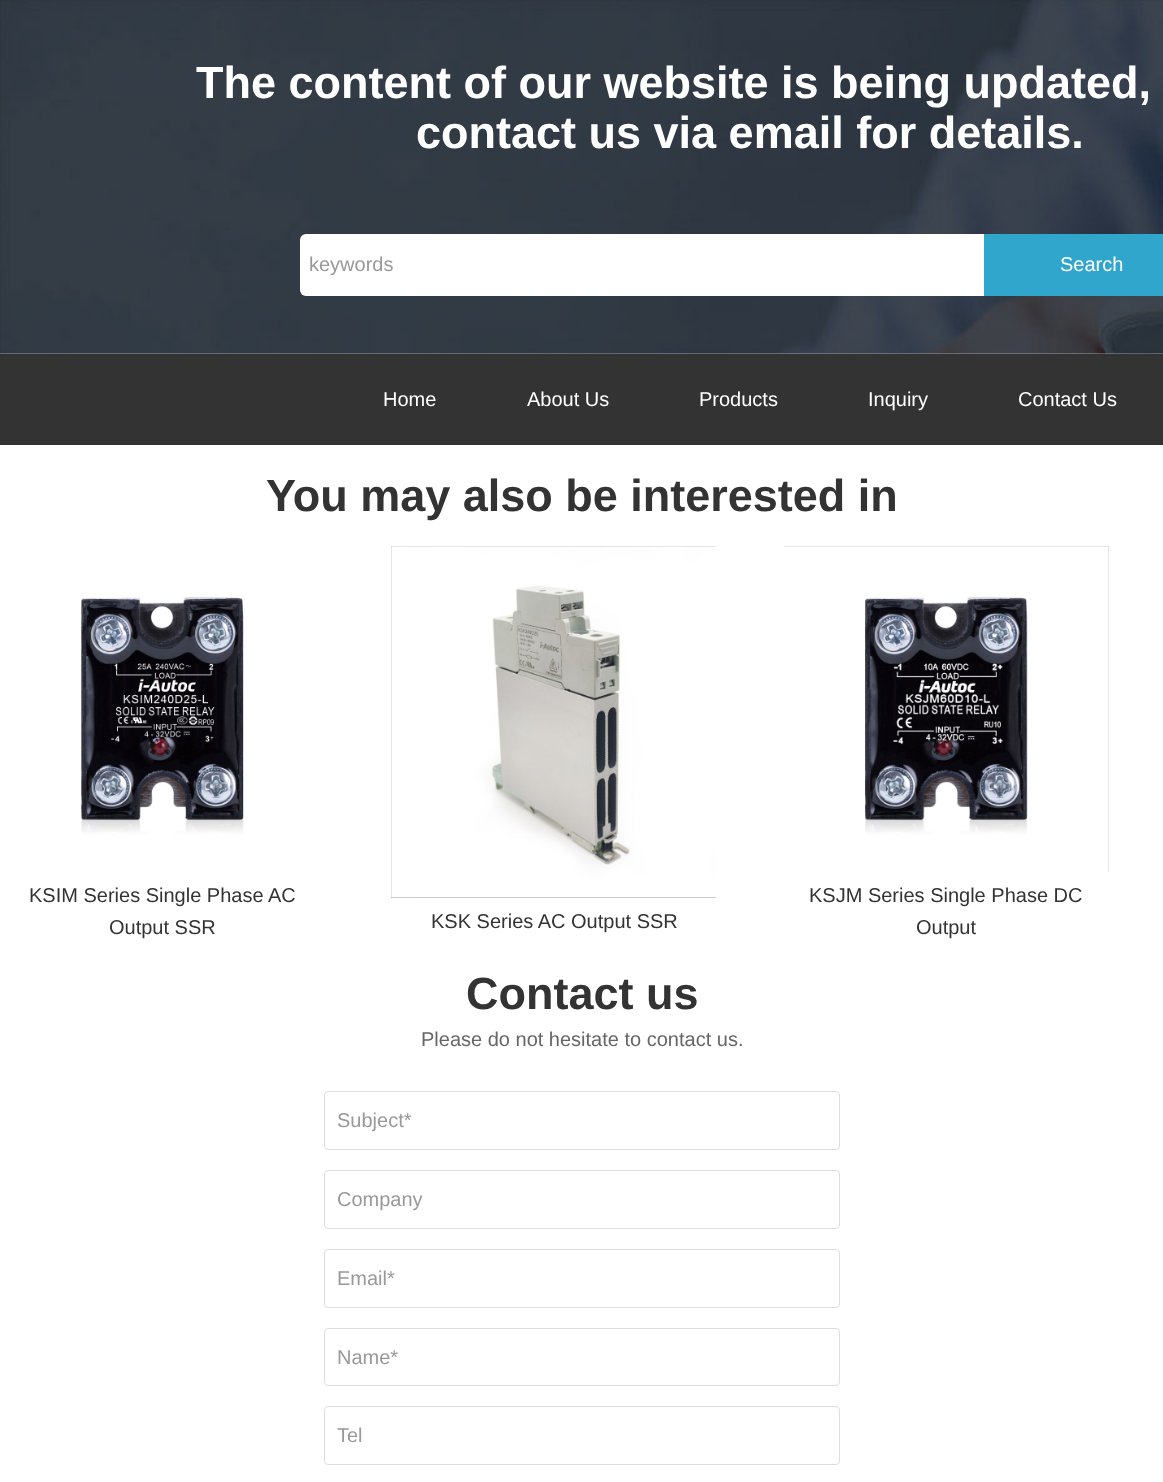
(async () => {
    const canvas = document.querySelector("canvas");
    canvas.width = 1163;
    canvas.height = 1482;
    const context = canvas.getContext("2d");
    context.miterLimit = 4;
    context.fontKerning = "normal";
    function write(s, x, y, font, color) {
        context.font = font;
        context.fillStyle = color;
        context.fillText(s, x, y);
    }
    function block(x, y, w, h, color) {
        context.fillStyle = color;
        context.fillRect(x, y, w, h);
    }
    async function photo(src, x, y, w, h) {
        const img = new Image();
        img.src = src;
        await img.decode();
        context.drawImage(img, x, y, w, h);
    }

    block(0, 0, 1163, 1482, "rgb(255, 255, 255)");
    await photo("media/1.png", 0, 0, 1163, 354);
    write("The content of our website is being updated,", 196, 98, "bold 45px Liberation Sans", "rgb(255, 255, 255)");
    write("contact us via email for details.", 416, 148, "bold 45px Liberation Sans", "rgb(255, 255, 255)");
    context.beginPath();
    context.roundRect(300, 234, 684, 62, [6, 0, 0, 6]);
    context.fill();
    write("keywords", 309, 271, "20px Liberation Sans", "rgb(153, 153, 153)");
    block(984, 234, 179, 62, "rgb(49, 166, 204)");
    write("Search", 1060, 271, "20px Liberation Sans", "rgb(255, 255, 255)");
    block(0, 354, 1163, 91, "rgb(51, 51, 51)");
    write("Home", 383, 406, "20px Liberation Sans", "rgb(255, 255, 255)");
    write("About Us", 527, 406, "20px Liberation Sans", "rgb(255, 255, 255)");
    write("Products", 699, 406, "20px Liberation Sans", "rgb(255, 255, 255)");
    write("Inquiry", 868, 406, "20px Liberation Sans", "rgb(255, 255, 255)");
    write("Contact Us", 1018, 406, "20px Liberation Sans", "rgb(255, 255, 255)");
    write("You may also be interested in", 266, 511, "bold 45px Liberation Sans", "rgb(51, 51, 51)");
    await photo("media/2.png", 0, 546, 325, 325);
    write("KSIM Series Single Phase AC", 29, 902, "20px Liberation Sans", "rgb(51, 51, 51)");
    write("Output SSR", 109, 934, "20px Liberation Sans", "rgb(51, 51, 51)");
    block(391, 546, 325, 352, "rgb(153, 153, 153)");
    await photo("media/3.png", 391, 546, 325, 352);
    write("KSK Series AC Output SSR", 431, 928, "20px Liberation Sans", "rgb(51, 51, 51)");
    block(784, 546, 325, 325, "rgb(153, 153, 153)");
    await photo("media/4.png", 784, 546, 325, 325);
    write("KSJM Series Single Phase DC", 809, 902, "20px Liberation Sans", "rgb(51, 51, 51)");
    write("Output", 916, 934, "20px Liberation Sans", "rgb(51, 51, 51)");
    write("Contact us", 466, 1009, "bold 45px Liberation Sans", "rgb(51, 51, 51)");
    write("Please do not hesitate to contact us.", 421, 1046, "20px Liberation Sans", "rgb(102, 102, 102)");
    context.beginPath();
    context.roundRect(324.5, 1091.5, 515, 58, 3.5);
    context.strokeStyle = "rgb(222, 222, 222)";
    context.stroke();
    write("Subject*", 337, 1127, "20px Liberation Sans", "rgb(153, 153, 153)");
    context.beginPath();
    context.roundRect(324.5, 1170.5, 515, 58, 3.5);
    context.stroke();
    write("Company", 337, 1206, "20px Liberation Sans", "rgb(153, 153, 153)");
    context.beginPath();
    context.roundRect(324.5, 1249.5, 515, 58, 3.5);
    context.stroke();
    write("Email*", 337, 1285, "20px Liberation Sans", "rgb(153, 153, 153)");
    context.beginPath();
    context.roundRect(324.5, 1328.5, 515, 57, 3.5);
    context.stroke();
    write("Name*", 337, 1364, "20px Liberation Sans", "rgb(153, 153, 153)");
    context.beginPath();
    context.roundRect(324.5, 1406.5, 515, 58, 3.5);
    context.stroke();
    write("Tel", 337, 1442, "20px Liberation Sans", "rgb(153, 153, 153)");
})();
